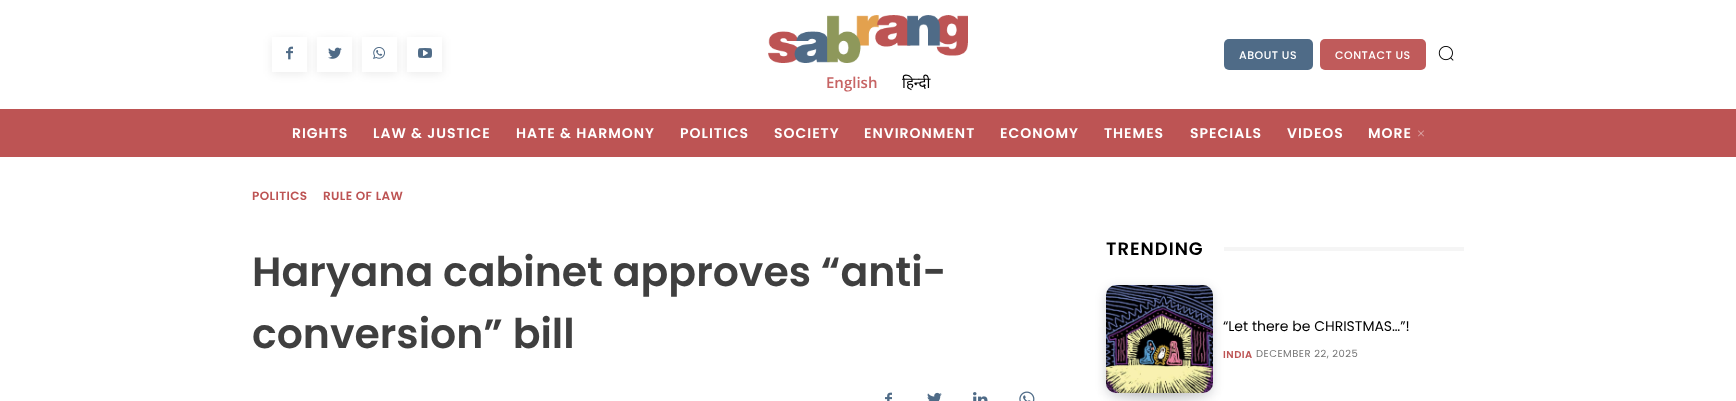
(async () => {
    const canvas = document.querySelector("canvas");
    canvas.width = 1736;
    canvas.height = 401;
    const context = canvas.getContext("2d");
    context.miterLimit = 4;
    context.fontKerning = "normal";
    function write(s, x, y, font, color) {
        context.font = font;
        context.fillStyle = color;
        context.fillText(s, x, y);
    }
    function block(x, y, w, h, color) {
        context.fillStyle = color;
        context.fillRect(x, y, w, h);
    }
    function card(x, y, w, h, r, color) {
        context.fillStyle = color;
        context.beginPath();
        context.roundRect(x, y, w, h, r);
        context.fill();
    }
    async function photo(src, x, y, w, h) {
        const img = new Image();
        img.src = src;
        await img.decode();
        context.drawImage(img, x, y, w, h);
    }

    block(0, 0, 1736, 401, "rgb(255, 255, 255)");
    context.save();
    context.beginPath();
    context.moveTo(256, 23);
    context.lineTo(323, 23);
    context.lineTo(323, 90);
    context.lineTo(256, 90);
    context.closePath();
    context.moveTo(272, 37);
    context.lineTo(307, 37);
    context.lineTo(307, 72);
    context.lineTo(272, 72);
    context.closePath();
    context.clip("evenodd");
    context.fillStyle = "rgba(0, 0, 0, 0.08)";
    context.filter = "blur(5px)";
    context.beginPath();
    context.rect(272, 39, 35, 35);
    context.fill();
    context.filter = "none";
    context.restore();
    await photo("media/1.png", 286, 46, 7, 14);
    context.save();
    context.beginPath();
    context.moveTo(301, 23);
    context.lineTo(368, 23);
    context.lineTo(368, 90);
    context.lineTo(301, 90);
    context.closePath();
    context.moveTo(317, 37);
    context.lineTo(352, 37);
    context.lineTo(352, 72);
    context.lineTo(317, 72);
    context.closePath();
    context.clip("evenodd");
    context.fillStyle = "rgba(0, 0, 0, 0.08)";
    context.filter = "blur(5px)";
    context.beginPath();
    context.rect(317, 39, 35, 35);
    context.fill();
    context.filter = "none";
    context.restore();
    await photo("media/2.png", 328, 47, 14, 12);
    context.save();
    context.beginPath();
    context.moveTo(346, 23);
    context.lineTo(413, 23);
    context.lineTo(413, 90);
    context.lineTo(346, 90);
    context.closePath();
    context.moveTo(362, 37);
    context.lineTo(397, 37);
    context.lineTo(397, 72);
    context.lineTo(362, 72);
    context.closePath();
    context.clip("evenodd");
    context.fillStyle = "rgba(0, 0, 0, 0.08)";
    context.filter = "blur(5px)";
    context.beginPath();
    context.rect(362, 39, 35, 35);
    context.fill();
    context.filter = "none";
    context.restore();
    await photo("media/3.png", 373, 47, 12, 12);
    context.save();
    context.beginPath();
    context.moveTo(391, 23);
    context.lineTo(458, 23);
    context.lineTo(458, 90);
    context.lineTo(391, 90);
    context.closePath();
    context.moveTo(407, 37);
    context.lineTo(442, 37);
    context.lineTo(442, 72);
    context.lineTo(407, 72);
    context.closePath();
    context.clip("evenodd");
    context.fillStyle = "rgba(0, 0, 0, 0.08)";
    context.filter = "blur(5px)";
    context.beginPath();
    context.rect(407, 39, 35, 35);
    context.fill();
    context.filter = "none";
    context.restore();
    await photo("media/4.png", 418, 48, 14, 10);
    card(1224, 39, 89, 31, 5, "rgb(79, 107, 135)");
    context.letterSpacing = "0.5px";
    write("ABOUT US", 1239, 59, "500 11px Poppins", "rgb(255, 255, 255)");
    card(1320, 39, 106, 31, 5, "rgb(192, 91, 91)");
    write("CONTACT US", 1335, 59, "500 11px Poppins", "rgb(255, 255, 255)");
    await photo("media/5.png", 1438, 46, 16, 15);
    await photo("media/6.png", 768, 15, 200, 48);
    context.letterSpacing = "0px";
    write("English", 826, 88, "600 15px Open Sans", "rgb(199, 100, 100)");
    write("हिन्दी", 902, 88, "15px Noto Sans", "rgb(0, 0, 0)");
    block(0, 109, 1736, 48, "rgb(189, 84, 84)");
    context.letterSpacing = "1px";
    write("RIGHTS", 292, 138, "600 14px Poppins", "rgb(255, 255, 255)");
    write("LAW & JUSTICE", 373, 138, "600 14px Poppins", "rgb(255, 255, 255)");
    write("HATE & HARMONY", 516, 138, "600 14px Poppins", "rgb(255, 255, 255)");
    write("POLITICS", 680, 138, "600 14px Poppins", "rgb(255, 255, 255)");
    write("SOCIETY", 774, 138, "600 14px Poppins", "rgb(255, 255, 255)");
    write("ENVIRONMENT", 864, 138, "600 14px Poppins", "rgb(255, 255, 255)");
    write("ECONOMY", 1000, 138, "600 14px Poppins", "rgb(255, 255, 255)");
    write("THEMES", 1104, 138, "600 14px Poppins", "rgb(255, 255, 255)");
    write("SPECIALS", 1190, 138, "600 14px Poppins", "rgb(255, 255, 255)");
    write("VIDEOS", 1287, 138, "600 14px Poppins", "rgb(255, 255, 255)");
    write("MORE", 1368, 138, "600 14px Poppins", "rgb(255, 255, 255)");
    await photo("media/7.png", 1418, 130, 6, 7);
    context.letterSpacing = "0.4px";
    write("POLITICS", 252, 200, "600 12px Poppins", "rgb(189, 84, 84)");
    write("RULE OF LAW", 323, 200, "600 12px Poppins", "rgb(189, 84, 84)");
    context.letterSpacing = "0px";
    write("Haryana cabinet approves “anti-", 252, 286, "600 41px Poppins", "rgb(63, 63, 63)");
    write("conversion” bill", 252, 348, "600 41px Poppins", "rgb(63, 63, 63)");
    await photo("media/8.png", 885, 392, 7, 9);
    await photo("media/9.png", 927, 392, 15, 9);
    await photo("media/10.png", 973, 392, 15, 9);
    await photo("media/11.png", 1019, 391, 16, 10);
    context.letterSpacing = "1px";
    write("TRENDING", 1106, 255, "600 18px Poppins", "rgb(0, 0, 0)");
    block(1224, 247, 240, 4, "rgb(245, 245, 245)");
    context.fillStyle = "rgba(7, 10, 25, 0.2)";
    context.filter = "blur(13.5px)";
    context.beginPath();
    context.rect(1126, 327, 67, 68);
    context.fill();
    context.filter = "none";
    context.filter = "blur(6px)";
    context.beginPath();
    context.roundRect(1107, 289, 105, 106, 9);
    context.fill();
    context.filter = "none";
    await photo("media/12.png", 1106, 285, 107, 108);
    context.letterSpacing = "0px";
    write("“Let there be CHRISTMAS…”!", 1223, 331, "14px Poppins", "rgb(0, 0, 0)");
    context.letterSpacing = "0.5px";
    write("INDIA", 1223, 358, "600 10px Poppins", "rgb(189, 84, 84)");
    write("DECEMBER 22, 2025", 1256, 357, "10px Poppins", "rgb(118, 118, 118)");
})();
